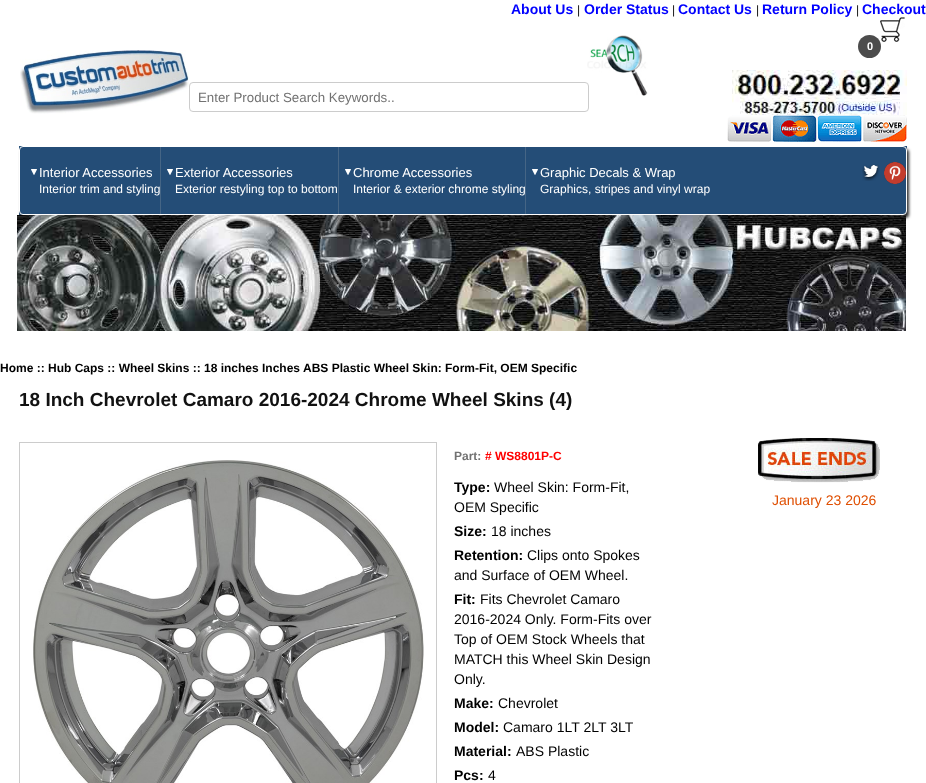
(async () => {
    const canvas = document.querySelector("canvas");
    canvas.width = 926;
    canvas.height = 783;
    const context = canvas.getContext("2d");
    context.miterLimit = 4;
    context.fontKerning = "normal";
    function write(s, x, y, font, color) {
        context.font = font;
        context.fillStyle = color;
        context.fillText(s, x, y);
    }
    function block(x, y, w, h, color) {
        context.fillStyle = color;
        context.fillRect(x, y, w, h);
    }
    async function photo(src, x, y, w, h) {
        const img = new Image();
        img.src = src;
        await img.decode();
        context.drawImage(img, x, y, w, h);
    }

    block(0, 0, 926, 783, "rgb(255, 255, 255)");
    write("About Us", 511, 14, "bold 14px Liberation Sans", "rgb(0, 0, 255)");
    write("|", 577, 14, "12px Liberation Sans", "rgb(17, 17, 17)");
    write("Order Status", 584, 14, "bold 14px Liberation Sans", "rgb(0, 0, 255)");
    write("|", 672, 14, "12px Liberation Sans", "rgb(17, 17, 17)");
    write("Contact Us", 678, 14, "bold 14px Liberation Sans", "rgb(0, 0, 255)");
    write("|", 756, 14, "12px Liberation Sans", "rgb(17, 17, 17)");
    write("Return Policy", 762, 14, "bold 14px Liberation Sans", "rgb(0, 0, 255)");
    write("|", 856, 14, "12px Liberation Sans", "rgb(17, 17, 17)");
    write("Checkout", 862, 14, "bold 14px Liberation Sans", "rgb(0, 0, 255)");
    await photo("media/1.png", 880, 17, 25, 25);
    context.fillStyle = "rgb(76, 76, 76)";
    context.beginPath();
    context.arc(869.5, 46.5, 11.5, 0, Math.PI * 2);
    context.fill();
    write("0", 867, 50, "bold 11px Liberation Sans", "rgb(255, 255, 255)");
    await photo("media/2.png", 20, 50, 169, 64);
    await photo("media/3.png", 587, 35, 61, 61);
    context.beginPath();
    context.roundRect(189.5, 82.5, 399, 29, 3.5);
    context.strokeStyle = "rgb(204, 204, 204)";
    context.stroke();
    write("Enter Product Search Keywords..", 198, 102, "13.3px Liberation Sans", "rgb(114, 114, 114)");
    await photo("media/4.png", 732, 70, 175, 45);
    await photo("media/5.png", 727, 115, 180, 27);
    block(19, 146, 888, 69, "rgb(36, 77, 119)");
    context.fillStyle = "rgb(51, 51, 51)";
    context.filter = "blur(1.5px)";
    context.beginPath();
    context.roundRect(21, 149, 888, 69, 4);
    context.fill();
    context.filter = "none";
    context.fillStyle = "rgb(36, 77, 119)";
    context.beginPath();
    context.roundRect(19.5, 146.5, 887, 68, 3.5);
    context.fill();
    context.strokeStyle = "rgb(255, 255, 255)";
    context.stroke();
    block(160, 147, 1, 67, "rgb(69, 101, 133)");
    await photo("media/6.png", 31, 169, 6, 6);
    write("Interior Accessories", 39, 177, "13px Liberation Sans", "rgb(255, 255, 255)");
    write("Interior trim and styling", 39, 193, "12px Liberation Sans", "rgb(255, 255, 255)");
    block(338, 147, 1, 67, "rgb(69, 101, 133)");
    await photo("media/6.png", 167, 169, 6, 6);
    write("Exterior Accessories", 175, 177, "13px Liberation Sans", "rgb(255, 255, 255)");
    write("Exterior restyling top to bottom", 175, 193, "12px Liberation Sans", "rgb(255, 255, 255)");
    block(525, 147, 1, 67, "rgb(69, 101, 133)");
    await photo("media/6.png", 345, 169, 6, 6);
    write("Chrome Accessories", 353, 177, "13px Liberation Sans", "rgb(255, 255, 255)");
    write("Interior & exterior chrome styling", 353, 193, "12px Liberation Sans", "rgb(255, 255, 255)");
    await photo("media/6.png", 532, 169, 6, 6);
    write("Graphic Decals & Wrap", 540, 177, "13px Liberation Sans", "rgb(255, 255, 255)");
    write("Graphics, stripes and vinyl wrap", 540, 193, "12px Liberation Sans", "rgb(255, 255, 255)");
    await photo("media/7.png", 862, 164, 18, 17);
    await photo("media/8.png", 884, 162, 22, 22);
    await photo("media/9.png", 17, 215, 889, 116);
    write("Home :: Hub Caps :: Wheel Skins ::", 0, 372, "bold 12px Liberation Sans", "rgb(0, 0, 0)");
    write("18 inches Inches", 204, 372, "bold 12px Liberation Sans", "rgb(0, 0, 0)");
    write("ABS Plastic Wheel Skin: Form-Fit, OEM Specific", 303, 372, "bold 12px Liberation Sans", "rgb(0, 0, 0)");
    write("18 Inch Chevrolet Camaro 2016-2024 Chrome Wheel Skins (4)", 19, 406, "bold 19px Liberation Sans", "rgb(17, 17, 17)");
    await photo("media/10.png", 758, 438, 122, 45);
    write("January 23 2026", 772, 505, "14px Liberation Sans", "rgb(223, 78, 0)");
    context.strokeStyle = "rgb(204, 204, 204)";
    context.strokeRect(19.5, 442.5, 417, 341);
    await photo("media/11.png", 33, 460, 391, 323);
    write("Part:", 454, 460, "bold 12px Liberation Sans", "rgb(114, 114, 114)");
    write("# WS8801P-C", 485, 460, "bold 12px Liberation Sans", "rgb(255, 0, 0)");
    write("Type:", 454, 492, "bold 14px Liberation Sans", "rgb(0, 0, 0)");
    write("Wheel Skin: Form-Fit,", 494, 492, "14px Liberation Sans", "rgb(0, 0, 0)");
    write("OEM Specific", 454, 512, "14px Liberation Sans", "rgb(0, 0, 0)");
    write("Size:", 454, 536, "bold 14px Liberation Sans", "rgb(0, 0, 0)");
    write("18 inches", 491, 536, "14px Liberation Sans", "rgb(0, 0, 0)");
    write("Retention:", 454, 560, "bold 14px Liberation Sans", "rgb(0, 0, 0)");
    write("Clips onto Spokes", 527, 560, "14px Liberation Sans", "rgb(0, 0, 0)");
    write("and Surface of OEM Wheel.", 454, 580, "14px Liberation Sans", "rgb(0, 0, 0)");
    write("Fit:", 454, 604, "bold 14px Liberation Sans", "rgb(0, 0, 0)");
    write("Fits Chevrolet Camaro", 480, 604, "14px Liberation Sans", "rgb(0, 0, 0)");
    write("2016-2024 Only. Form-Fits over", 454, 624, "14px Liberation Sans", "rgb(0, 0, 0)");
    write("Top of OEM Stock Wheels that", 454, 644, "14px Liberation Sans", "rgb(0, 0, 0)");
    write("MATCH this Wheel Skin Design", 454, 664, "14px Liberation Sans", "rgb(0, 0, 0)");
    write("Only.", 454, 684, "14px Liberation Sans", "rgb(0, 0, 0)");
    write("Make:", 454, 708, "bold 14px Liberation Sans", "rgb(0, 0, 0)");
    write("Chevrolet", 498, 708, "14px Liberation Sans", "rgb(0, 0, 0)");
    write("Model:", 454, 732, "bold 14px Liberation Sans", "rgb(0, 0, 0)");
    write("Camaro 1LT 2LT 3LT", 503, 732, "14px Liberation Sans", "rgb(0, 0, 0)");
    write("Material:", 454, 756, "bold 14px Liberation Sans", "rgb(0, 0, 0)");
    write("ABS Plastic", 516, 756, "14px Liberation Sans", "rgb(0, 0, 0)");
    write("Pcs:", 454, 780, "bold 14px Liberation Sans", "rgb(0, 0, 0)");
    write("4", 488, 780, "14px Liberation Sans", "rgb(0, 0, 0)");
})();
